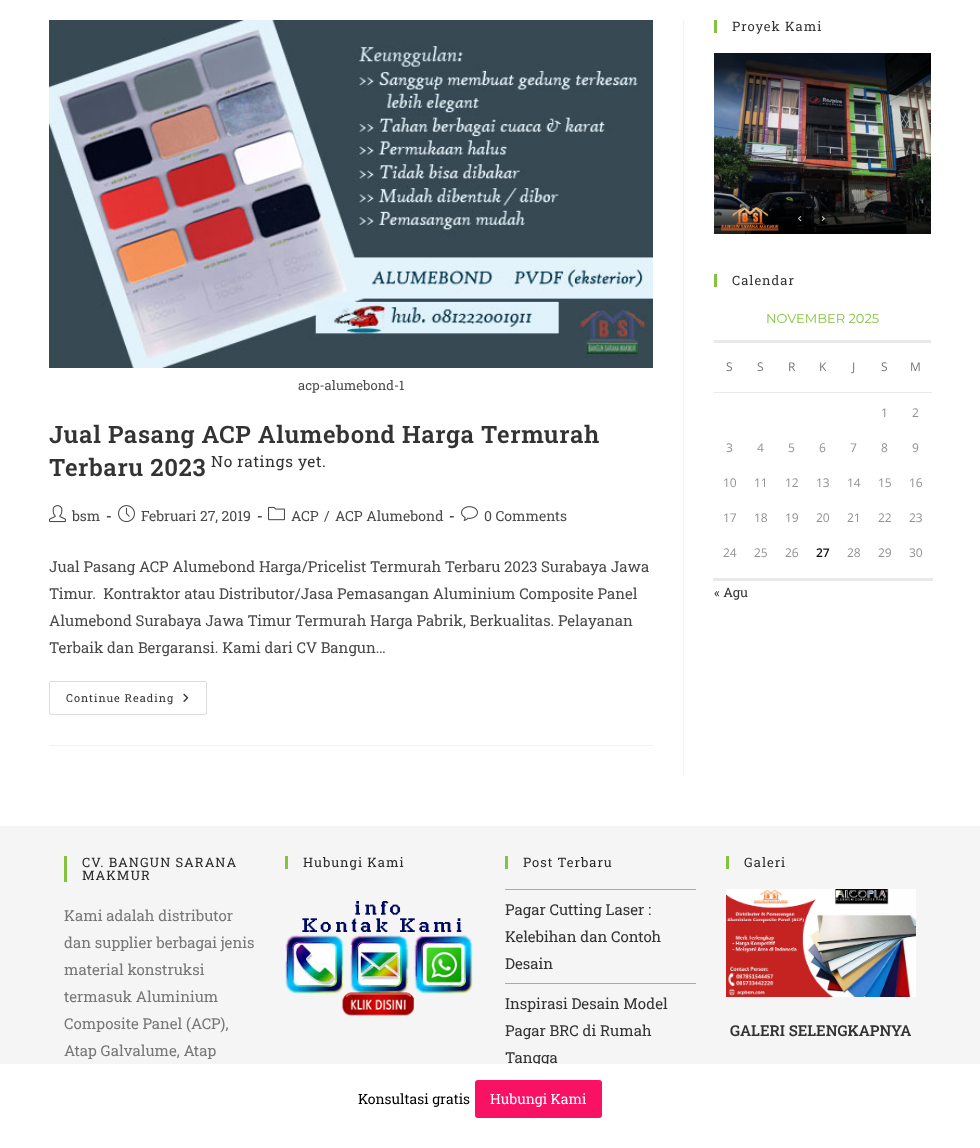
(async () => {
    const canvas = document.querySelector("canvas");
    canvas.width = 980;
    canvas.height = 1148;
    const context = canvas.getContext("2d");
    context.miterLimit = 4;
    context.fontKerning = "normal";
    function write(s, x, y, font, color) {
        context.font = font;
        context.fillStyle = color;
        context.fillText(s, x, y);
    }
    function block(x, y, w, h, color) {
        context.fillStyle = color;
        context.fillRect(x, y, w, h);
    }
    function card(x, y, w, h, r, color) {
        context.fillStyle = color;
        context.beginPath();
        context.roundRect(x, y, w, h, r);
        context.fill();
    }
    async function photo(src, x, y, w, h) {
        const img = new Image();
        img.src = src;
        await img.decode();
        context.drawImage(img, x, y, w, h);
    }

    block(0, 0, 980, 1148, "rgb(255, 255, 255)");
    block(683, 20, 1, 756, "rgb(241, 241, 241)");
    block(49, 745, 604, 1, "rgb(241, 241, 241)");
    await photo("media/1.png", 49, 20, 604, 348);
    write("acp-alumebond-1", 298, 390, "13px Roboto Slab", "rgb(74, 74, 74)");
    context.letterSpacing = "0.6px";
    write("Jual Pasang ACP Alumebond Harga Termurah", 49, 443, "600 24px Roboto Slab", "rgb(51, 51, 51)");
    write("Terbaru 2023", 49, 476, "600 24px Roboto Slab", "rgb(51, 51, 51)");
    write("No ratings yet.", 211, 467, "15.5px Roboto Slab", "rgb(51, 51, 51)");
    await photo("media/2.png", 49, 505, 17, 18);
    context.letterSpacing = "0px";
    write("bsm", 72, 521, "14px Roboto Slab", "rgb(74, 74, 74)");
    write("-", 106, 521, "bold 14px Roboto Slab", "rgb(74, 74, 74)");
    await photo("media/3.png", 118, 505, 17, 18);
    write("Februari 27, 2019", 141, 521, "14px Roboto Slab", "rgb(74, 74, 74)");
    write("-", 257, 521, "bold 14px Roboto Slab", "rgb(74, 74, 74)");
    await photo("media/4.png", 268, 506, 17, 15);
    write("ACP", 291, 521, "14px Roboto Slab", "rgb(74, 74, 74)");
    write("/", 324, 521, "14px Roboto Slab", "rgb(74, 74, 74)");
    write("ACP Alumebond", 335, 521, "14px Roboto Slab", "rgb(74, 74, 74)");
    write("-", 449, 521, "bold 14px Roboto Slab", "rgb(74, 74, 74)");
    await photo("media/5.png", 461, 506, 17, 15);
    write("0 Comments", 484, 521, "14px Roboto Slab", "rgb(74, 74, 74)");
    write("Jual Pasang ACP Alumebond Harga/Pricelist Termurah Terbaru 2023 Surabaya Jawa", 49, 572, "15px Roboto Slab", "rgb(74, 74, 74)");
    write("Timur.  Kontraktor atau Distributor/Jasa Pemasangan Aluminium Composite Panel", 49, 599, "15px Roboto Slab", "rgb(74, 74, 74)");
    write("Alumebond Surabaya Jawa Timur Termurah Harga Pabrik, Berkualitas. Pelayanan", 49, 626, "15px Roboto Slab", "rgb(74, 74, 74)");
    write("Terbaik dan Bergaransi. Kami dari CV Bangun…", 49, 653, "15px Roboto Slab", "rgb(74, 74, 74)");
    context.beginPath();
    context.roundRect(49.5, 681.5, 157, 33, 1.5);
    context.strokeStyle = "rgb(221, 221, 221)";
    context.stroke();
    context.letterSpacing = "1px";
    write("Continue Reading", 66, 702, "11px Roboto Slab", "rgb(51, 51, 51)");
    await photo("media/6.png", 183, 693, 6, 9);
    block(714, 20, 3, 13, "rgb(132, 195, 64)");
    write("Proyek Kami", 732, 31, "13px Roboto Slab", "rgb(51, 51, 51)");
    await photo("media/7.png", 714, 53, 217, 181);
    block(714, 274, 3, 13, "rgb(132, 195, 64)");
    write("Calendar", 732, 285, "13px Roboto Slab", "rgb(51, 51, 51)");
    block(714, 340, 217, 3, "rgb(233, 233, 233)");
    context.letterSpacing = "0px";
    write("NOVEMBER 2025", 766, 323, "13px Montserrat", "rgb(132, 195, 64)");
    write("S", 726, 371, "12px Open Sans", "rgb(119, 119, 119)");
    write("S", 757, 371, "12px Open Sans", "rgb(119, 119, 119)");
    write("R", 788, 371, "12px Open Sans", "rgb(119, 119, 119)");
    write("K", 819, 371, "12px Open Sans", "rgb(119, 119, 119)");
    write("J", 852, 371, "12px Open Sans", "rgb(119, 119, 119)");
    write("S", 881, 371, "12px Open Sans", "rgb(119, 119, 119)");
    block(714, 392, 218, 1, "rgb(233, 233, 233)");
    write("M", 910, 371, "12px Open Sans", "rgb(119, 119, 119)");
    block(713, 578, 220, 3, "rgb(233, 233, 233)");
    write("1", 881, 417, "12px Open Sans", "rgb(146, 146, 146)");
    write("2", 912, 417, "12px Open Sans", "rgb(146, 146, 146)");
    write("3", 726, 452, "12px Open Sans", "rgb(146, 146, 146)");
    write("4", 757, 452, "12px Open Sans", "rgb(146, 146, 146)");
    write("5", 788, 452, "12px Open Sans", "rgb(146, 146, 146)");
    write("6", 819, 452, "12px Open Sans", "rgb(146, 146, 146)");
    write("7", 850, 452, "12px Open Sans", "rgb(146, 146, 146)");
    write("8", 881, 452, "12px Open Sans", "rgb(146, 146, 146)");
    write("9", 912, 452, "12px Open Sans", "rgb(146, 146, 146)");
    write("10", 723, 487, "12px Open Sans", "rgb(146, 146, 146)");
    write("11", 754, 487, "12px Open Sans", "rgb(146, 146, 146)");
    write("12", 785, 487, "12px Open Sans", "rgb(146, 146, 146)");
    write("13", 816, 487, "12px Open Sans", "rgb(146, 146, 146)");
    write("14", 847, 487, "12px Open Sans", "rgb(146, 146, 146)");
    write("15", 878, 487, "12px Open Sans", "rgb(146, 146, 146)");
    write("16", 909, 487, "12px Open Sans", "rgb(146, 146, 146)");
    write("17", 723, 522, "12px Open Sans", "rgb(146, 146, 146)");
    write("18", 754, 522, "12px Open Sans", "rgb(146, 146, 146)");
    write("19", 785, 522, "12px Open Sans", "rgb(146, 146, 146)");
    write("20", 816, 522, "12px Open Sans", "rgb(146, 146, 146)");
    write("21", 847, 522, "12px Open Sans", "rgb(146, 146, 146)");
    write("22", 878, 522, "12px Open Sans", "rgb(146, 146, 146)");
    write("23", 909, 522, "12px Open Sans", "rgb(146, 146, 146)");
    write("24", 723, 557, "12px Open Sans", "rgb(146, 146, 146)");
    write("25", 754, 557, "12px Open Sans", "rgb(146, 146, 146)");
    write("26", 785, 557, "12px Open Sans", "rgb(146, 146, 146)");
    write("27", 816, 557, "600 12px Open Sans", "rgb(17, 17, 17)");
    write("28", 847, 557, "12px Open Sans", "rgb(146, 146, 146)");
    write("29", 878, 557, "12px Open Sans", "rgb(146, 146, 146)");
    write("30", 909, 557, "12px Open Sans", "rgb(146, 146, 146)");
    write("« Agu", 714, 597, "13px Roboto Slab", "rgb(51, 51, 51)");
    block(0, 826, 980, 238, "rgb(245, 245, 245)");
    block(64, 856, 3, 26, "rgb(132, 195, 64)");
    context.letterSpacing = "1px";
    write("CV. BANGUN SARANA", 82, 867, "13px Roboto Slab", "rgb(41, 41, 41)");
    write("MAKMUR", 82, 880, "13px Roboto Slab", "rgb(41, 41, 41)");
    context.letterSpacing = "0px";
    write("Kami adalah distributor", 64, 921, "15px Roboto Slab", "rgb(119, 119, 119)");
    write("dan supplier berbagai jenis", 64, 948, "15px Roboto Slab", "rgb(119, 119, 119)");
    write("material konstruksi", 64, 975, "15px Roboto Slab", "rgb(119, 119, 119)");
    write("termasuk Aluminium", 64, 1002, "15px Roboto Slab", "rgb(119, 119, 119)");
    write("Composite Panel (ACP),", 64, 1029, "15px Roboto Slab", "rgb(119, 119, 119)");
    write("Atap Galvalume, Atap", 64, 1056, "15px Roboto Slab", "rgb(119, 119, 119)");
    block(285, 856, 3, 13, "rgb(132, 195, 64)");
    context.letterSpacing = "1px";
    write("Hubungi Kami", 303, 867, "13px Roboto Slab", "rgb(41, 41, 41)");
    await photo("media/8.png", 285, 901, 188, 115);
    block(505, 856, 3, 13, "rgb(132, 195, 64)");
    write("Post Terbaru", 523, 867, "13px Roboto Slab", "rgb(41, 41, 41)");
    block(505, 889, 191, 1, "rgb(170, 170, 170)");
    block(505, 983, 191, 1, "rgb(170, 170, 170)");
    context.letterSpacing = "0px";
    write("Pagar Cutting Laser :", 505, 915, "15px Roboto Slab", "rgb(51, 51, 51)");
    write("Kelebihan dan Contoh", 505, 942, "15px Roboto Slab", "rgb(51, 51, 51)");
    write("Desain", 505, 969, "15px Roboto Slab", "rgb(51, 51, 51)");
    write("Inspirasi Desain Model", 505, 1009, "15px Roboto Slab", "rgb(51, 51, 51)");
    write("Pagar BRC di Rumah", 505, 1036, "15px Roboto Slab", "rgb(51, 51, 51)");
    write("Tangga", 505, 1063, "15px Roboto Slab", "rgb(51, 51, 51)");
    block(726, 856, 3, 13, "rgb(132, 195, 64)");
    context.letterSpacing = "1px";
    write("Galeri", 744, 867, "13px Roboto Slab", "rgb(41, 41, 41)");
    await photo("media/9.png", 726, 889, 190, 108);
    context.letterSpacing = "0px";
    write("GALERI SELENGKAPNYA", 730, 1036, "600 15px Roboto Slab", "rgb(51, 51, 51)");
    block(534, 1064, 15, 3, "rgb(255, 255, 255)");
    write("Konsultasi gratis", 358, 1104, "14px Roboto Slab", "rgb(0, 0, 0)");
    card(475, 1080, 127, 38, 3, "rgb(249, 18, 99)");
    write("Hubungi Kami", 490, 1104, "14px Roboto Slab", "rgb(255, 255, 255)");
})();
